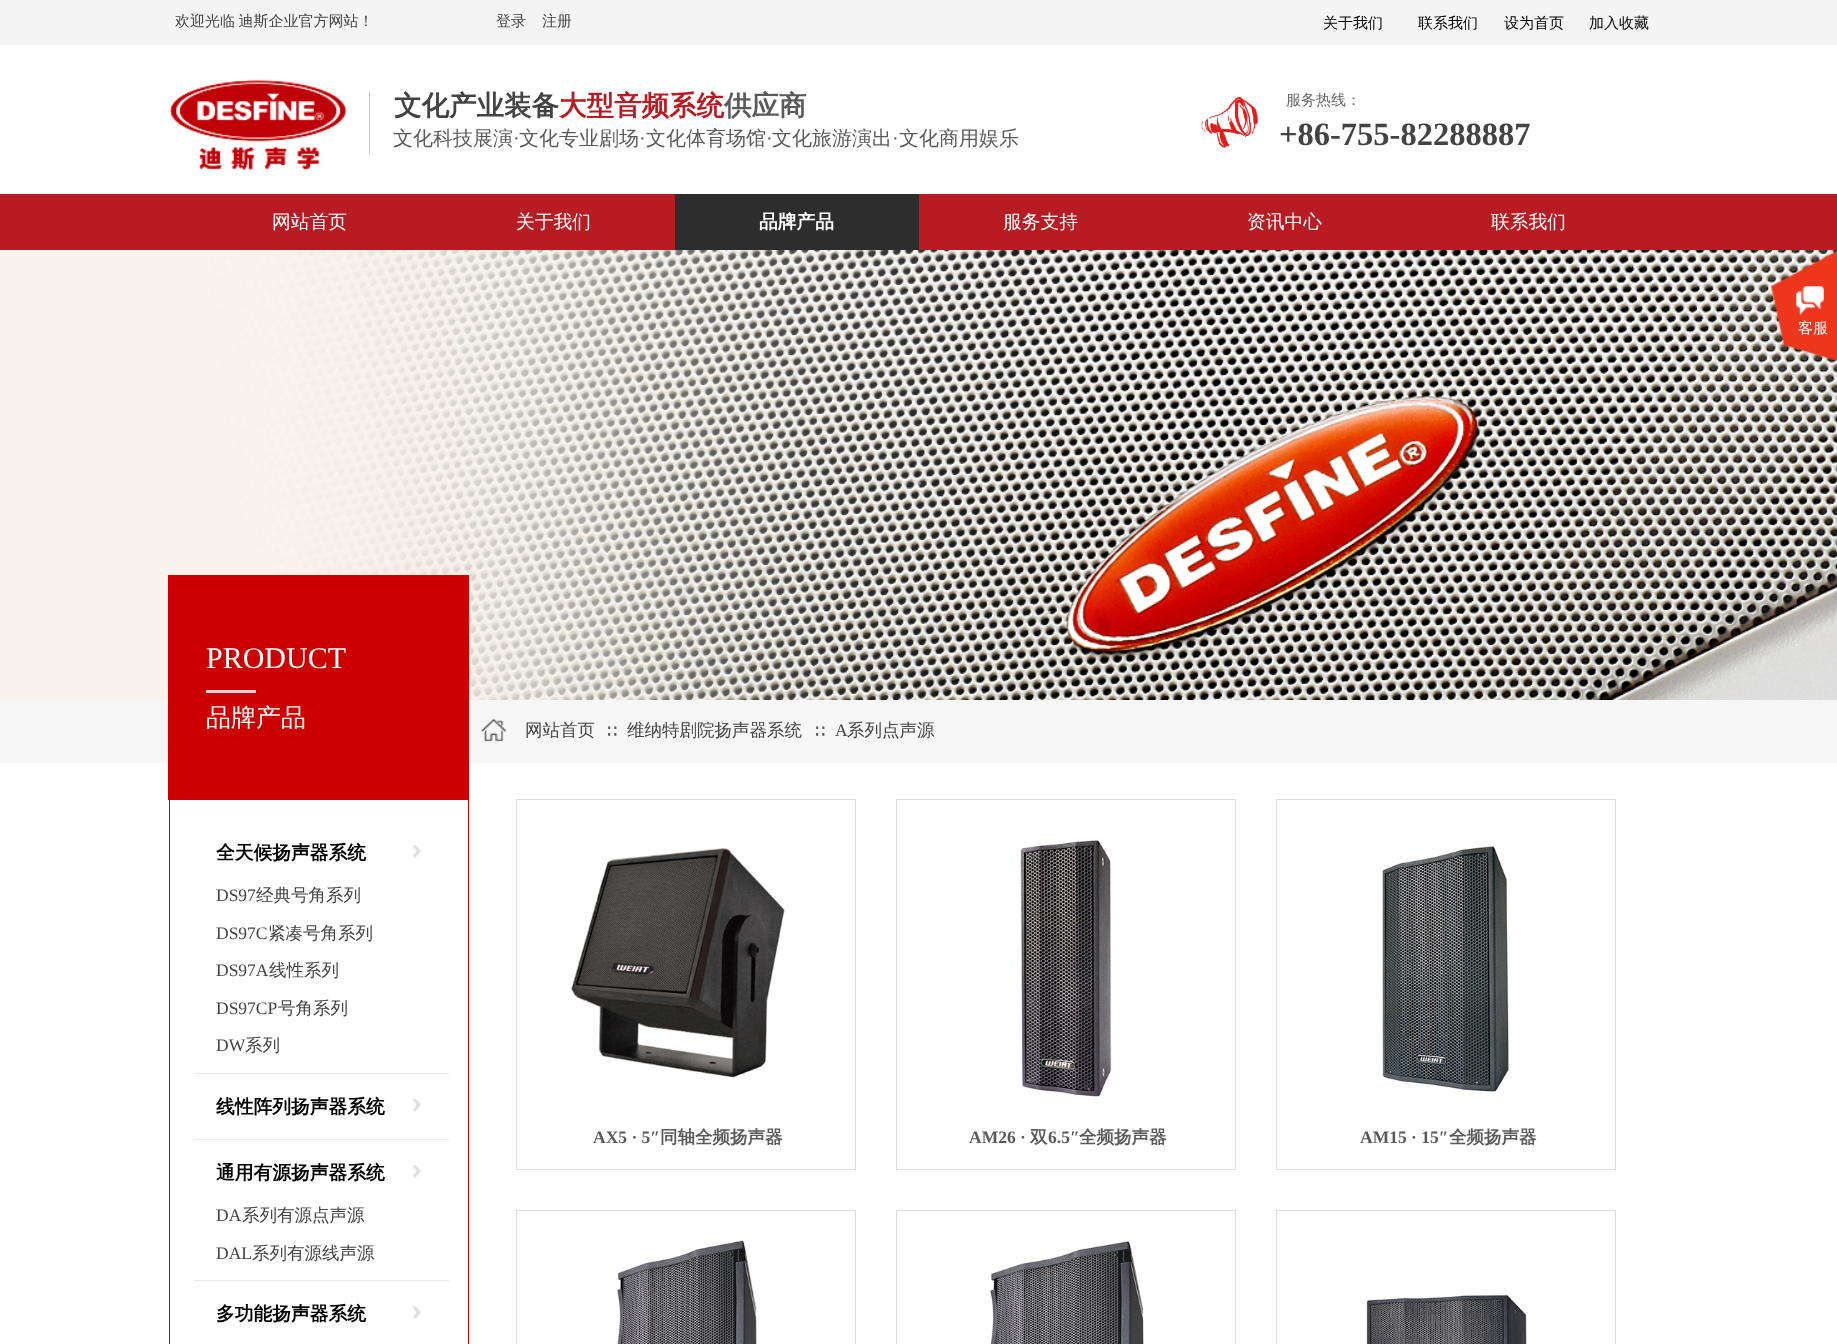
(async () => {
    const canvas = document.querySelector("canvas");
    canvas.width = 1837;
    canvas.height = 1344;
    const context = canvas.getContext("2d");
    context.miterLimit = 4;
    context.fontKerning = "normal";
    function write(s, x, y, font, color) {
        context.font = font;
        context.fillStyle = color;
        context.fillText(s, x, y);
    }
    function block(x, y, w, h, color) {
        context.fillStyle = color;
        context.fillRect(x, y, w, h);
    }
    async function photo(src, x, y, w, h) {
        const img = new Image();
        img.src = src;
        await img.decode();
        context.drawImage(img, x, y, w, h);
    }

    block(0, 0, 1837, 1344, "rgb(255, 255, 255)");
    block(0, 0, 1837, 45, "rgb(244, 244, 244)");
    context.wordSpacing = "-1px";
    write("欢迎光临 迪斯企业官方网站！", 175, 26, "500 15px WenQuanYi Zen Hei", "rgb(67, 67, 67)");
    context.wordSpacing = "0px";
    write("登录", 496, 26, "500 15px WenQuanYi Zen Hei", "rgb(67, 67, 67)");
    write("注册", 542, 26, "500 15px WenQuanYi Zen Hei", "rgb(67, 67, 67)");
    write("关于我们", 1323, 28, "500 15px WenQuanYi Zen Hei", "rgb(0, 0, 0)");
    write("联系我们", 1418, 28, "500 15px WenQuanYi Zen Hei", "rgb(0, 0, 0)");
    write("设为首页", 1504, 28, "500 15px WenQuanYi Zen Hei", "rgb(0, 0, 0)");
    write("加入收藏", 1589, 28, "500 15px WenQuanYi Zen Hei", "rgb(0, 0, 0)");
    await photo("media/1.png", 169, 79, 178, 94);
    block(369, 91, 1, 63, "rgb(204, 204, 204)");
    write("文化产业装备", 394, 115, "bold 27.5px WenQuanYi Zen Hei", "rgb(67, 67, 67)");
    write("大型音频系统", 559, 115, "bold 27.5px WenQuanYi Zen Hei", "rgb(184, 28, 34)");
    write("供应商", 724, 115, "bold 27.5px WenQuanYi Zen Hei", "rgb(90, 90, 90)");
    await photo("media/2.png", 1201, 97, 57, 51);
    write("服务热线：", 1286, 105, "500 15px WenQuanYi Zen Hei", "rgb(102, 102, 102)");
    write("文化科技展演", 393, 145, "500 20px WenQuanYi Zen Hei", "rgb(90, 90, 90)");
    write("·", 513, 145, "20px Liberation Serif", "rgb(90, 90, 90)");
    write("文化专业剧场", 519, 145, "500 20px WenQuanYi Zen Hei", "rgb(90, 90, 90)");
    write("·", 639, 145, "20px Liberation Serif", "rgb(90, 90, 90)");
    write("文化体育场馆", 646, 145, "500 20px WenQuanYi Zen Hei", "rgb(90, 90, 90)");
    write("·", 766, 145, "20px Liberation Serif", "rgb(90, 90, 90)");
    write("文化旅游演出", 772, 145, "500 20px WenQuanYi Zen Hei", "rgb(90, 90, 90)");
    write("·", 892, 145, "20px Liberation Serif", "rgb(90, 90, 90)");
    write("文化商用娱乐", 899, 145, "500 20px WenQuanYi Zen Hei", "rgb(90, 90, 90)");
    write("+86-755-82288887", 1279, 145, "bold 32.5px Liberation Serif", "rgb(67, 67, 67)");
    block(0, 194, 1837, 56, "rgb(184, 28, 34)");
    write("网站首页", 272, 228, "500 18.75px WenQuanYi Zen Hei", "rgb(255, 255, 255)");
    write("关于我们", 516, 228, "500 18.75px WenQuanYi Zen Hei", "rgb(255, 255, 255)");
    block(675, 194, 244, 56, "rgb(45, 45, 45)");
    write("品牌产品", 759, 228, "bold 18.75px WenQuanYi Zen Hei", "rgb(255, 255, 255)");
    write("服务支持", 1003, 228, "500 18.75px WenQuanYi Zen Hei", "rgb(255, 255, 255)");
    write("资讯中心", 1247, 228, "500 18.75px WenQuanYi Zen Hei", "rgb(255, 255, 255)");
    write("联系我们", 1491, 228, "500 18.75px WenQuanYi Zen Hei", "rgb(255, 255, 255)");
    await photo("media/3.png", 0, 250, 1837, 450);
    block(0, 700, 1837, 63, "rgb(246, 246, 246)");
    block(468, 575, 1, 769, "rgb(204, 0, 0)");
    block(169, 800, 1, 544, "rgb(204, 0, 0)");
    block(168, 575, 300, 225, "rgb(204, 0, 0)");
    write("PRODUCT", 206, 668, "30px Liberation Serif", "rgb(255, 255, 255)");
    block(206, 690, 50, 3, "rgb(217, 217, 217)");
    write("品牌产品", 206, 726, "500 25px WenQuanYi Zen Hei", "rgb(255, 255, 255)");
    block(194, 1073, 255, 1, "rgb(233, 233, 233)");
    write("全天候扬声器系统", 216, 859, "bold 18.75px WenQuanYi Zen Hei", "rgb(0, 0, 0)");
    await photo("media/4.png", 412, 845, 9, 13);
    write("DS97", 216, 901, "17.5px Liberation Serif", "rgb(67, 67, 67)");
    write("经典号角系列", 256, 901, "500 17.5px WenQuanYi Zen Hei", "rgb(67, 67, 67)");
    write("DS97C", 216, 939, "17.5px Liberation Serif", "rgb(67, 67, 67)");
    write("紧凑号角系列", 268, 939, "500 17.5px WenQuanYi Zen Hei", "rgb(67, 67, 67)");
    write("DS97A", 216, 976, "17.5px Liberation Serif", "rgb(67, 67, 67)");
    write("线性系列", 269, 976, "500 17.5px WenQuanYi Zen Hei", "rgb(67, 67, 67)");
    write("DS97CP", 216, 1014, "17.5px Liberation Serif", "rgb(67, 67, 67)");
    write("号角系列", 278, 1014, "500 17.5px WenQuanYi Zen Hei", "rgb(67, 67, 67)");
    write("DW", 216, 1051, "17.5px Liberation Serif", "rgb(67, 67, 67)");
    write("系列", 245, 1051, "500 17.5px WenQuanYi Zen Hei", "rgb(67, 67, 67)");
    block(194, 1139, 255, 1, "rgb(233, 233, 233)");
    write("线性阵列扬声器系统", 216, 1113, "bold 18.75px WenQuanYi Zen Hei", "rgb(0, 0, 0)");
    await photo("media/5.png", 412, 1098, 9, 14);
    block(194, 1280, 255, 1, "rgb(233, 233, 233)");
    write("通用有源扬声器系统", 216, 1179, "bold 18.75px WenQuanYi Zen Hei", "rgb(0, 0, 0)");
    await photo("media/4.png", 412, 1165, 9, 13);
    write("DA", 216, 1221, "17.5px Liberation Serif", "rgb(67, 67, 67)");
    write("系列有源点声源", 242, 1221, "500 17.5px WenQuanYi Zen Hei", "rgb(67, 67, 67)");
    write("DAL", 216, 1259, "17.5px Liberation Serif", "rgb(67, 67, 67)");
    write("系列有源线声源", 252, 1259, "500 17.5px WenQuanYi Zen Hei", "rgb(67, 67, 67)");
    write("多功能扬声器系统", 216, 1320, "bold 18.75px WenQuanYi Zen Hei", "rgb(0, 0, 0)");
    await photo("media/6.png", 412, 1306, 9, 13);
    await photo("media/7.png", 481, 718, 26, 24);
    write("网站首页", 525, 736, "500 17.5px WenQuanYi Zen Hei", "rgb(67, 67, 67)");
    write("∷", 605, 736, "500 15px WenQuanYi Zen Hei", "rgb(90, 90, 90)");
    write("维纳特剧院扬声器系统", 627, 736, "500 17.5px WenQuanYi Zen Hei", "rgb(67, 67, 67)");
    write("∷", 813, 736, "500 15px WenQuanYi Zen Hei", "rgb(90, 90, 90)");
    write("A", 835, 736, "17.5px Liberation Serif", "rgb(67, 67, 67)");
    write("系列点声源", 847, 736, "500 17.5px WenQuanYi Zen Hei", "rgb(67, 67, 67)");
    context.strokeStyle = "rgb(221, 221, 221)";
    context.strokeRect(516.5, 799.5, 339, 370);
    await photo("media/8.png", 571, 847, 214, 231);
    write("AX5 · 5″", 593, 1143, "bold 17.5px Liberation Serif", "rgb(90, 90, 90)");
    write("同轴全频扬声器", 660, 1143, "bold 17.5px WenQuanYi Zen Hei", "rgb(90, 90, 90)");
    context.strokeRect(896.5, 799.5, 339, 370);
    await photo("media/9.png", 1020, 840, 92, 257);
    write("AM26 ·", 969, 1143, "bold 17.5px Liberation Serif", "rgb(90, 90, 90)");
    write("双", 1030, 1143, "bold 17.5px WenQuanYi Zen Hei", "rgb(90, 90, 90)");
    write("6.5″", 1048, 1143, "bold 17.5px Liberation Serif", "rgb(90, 90, 90)");
    write("全频扬声器", 1079, 1143, "bold 17.5px WenQuanYi Zen Hei", "rgb(90, 90, 90)");
    context.strokeRect(1276.5, 799.5, 339, 370);
    await photo("media/10.png", 1382, 846, 127, 246);
    write("AM15 · 15″", 1360, 1143, "bold 17.5px Liberation Serif", "rgb(90, 90, 90)");
    write("全频扬声器", 1449, 1143, "bold 17.5px WenQuanYi Zen Hei", "rgb(90, 90, 90)");
    context.strokeRect(516.5, 1210.5, 339, 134);
    await photo("media/11.png", 617, 1240, 140, 104);
    context.strokeRect(896.5, 1210.5, 339, 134);
    await photo("media/12.png", 990, 1241, 154, 103);
    context.strokeRect(1276.5, 1210.5, 339, 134);
    await photo("media/13.png", 1366, 1294, 161, 50);
    await photo("media/14.png", 1771, 250, 66, 112);
    write("客服", 1798, 333, "500 15px WenQuanYi Zen Hei", "rgb(255, 255, 255)");
})();
